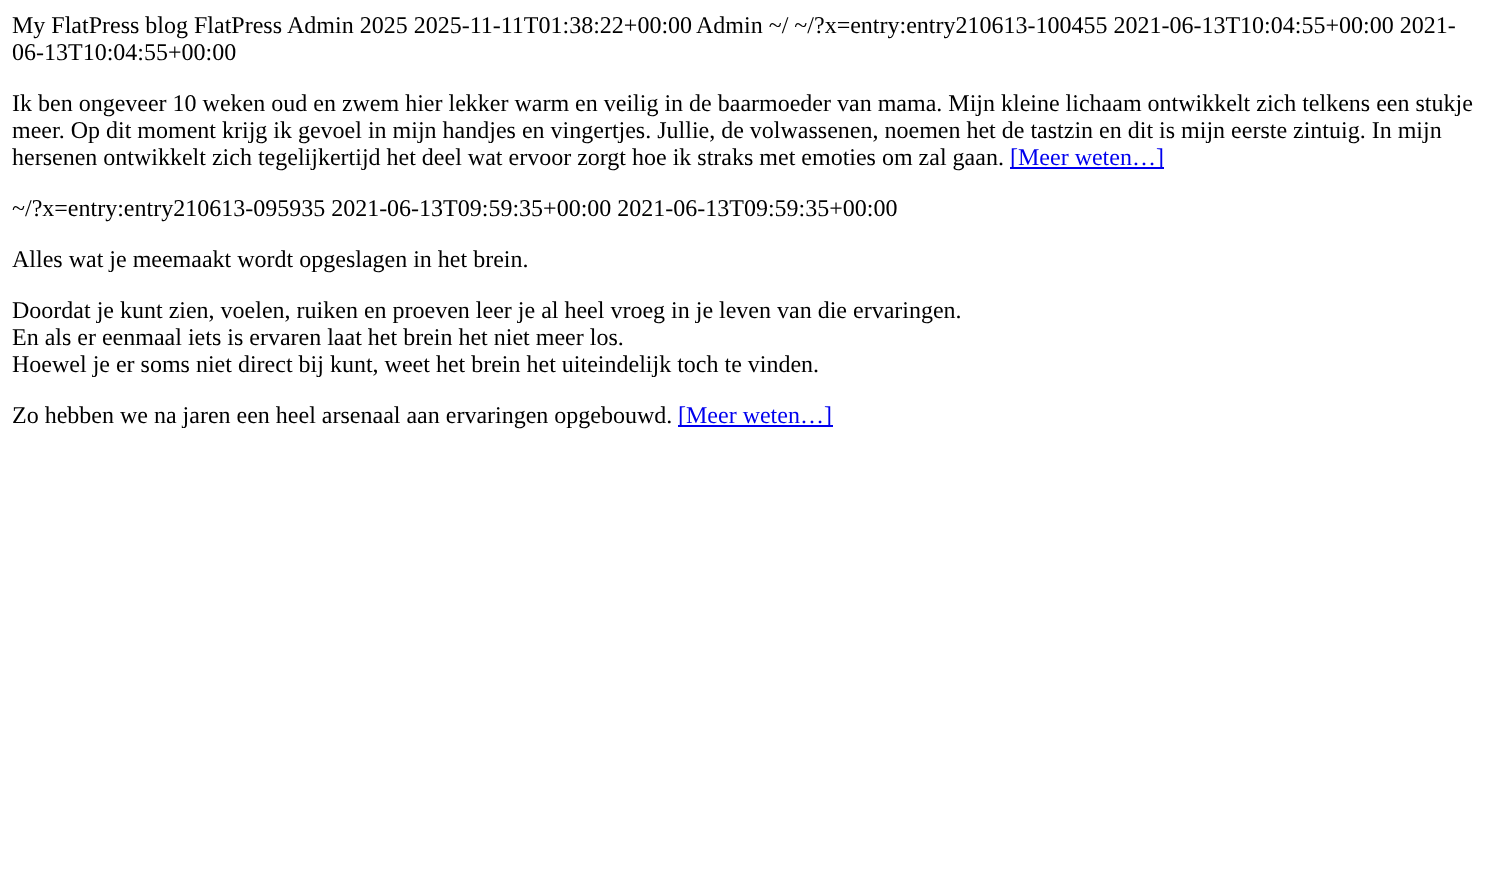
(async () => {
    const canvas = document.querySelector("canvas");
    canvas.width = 1489;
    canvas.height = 878;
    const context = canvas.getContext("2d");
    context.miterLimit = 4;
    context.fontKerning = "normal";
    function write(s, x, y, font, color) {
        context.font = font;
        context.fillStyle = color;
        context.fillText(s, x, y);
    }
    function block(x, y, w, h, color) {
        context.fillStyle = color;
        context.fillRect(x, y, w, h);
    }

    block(0, 0, 1489, 878, "rgb(255, 255, 255)");
    write("My FlatPress blog FlatPress", 12, 33, "24px Liberation Serif", "rgb(0, 0, 0)");
    write("Admin 2025 2025-11-11T01:38:22+00:00", 287, 33, "24px Liberation Serif", "rgb(0, 0, 0)");
    write("Admin ~/ ~/?x=entry:entry210613-100455 2021-06-13T10:04:55+00:00 2021-", 696, 33, "24px Liberation Serif", "rgb(0, 0, 0)");
    write("06-13T10:04:55+00:00", 12, 60, "24px Liberation Serif", "rgb(0, 0, 0)");
    write("Ik ben ongeveer 10 weken oud en zwem hier lekker warm en veilig in de baarmoeder van mama. Mijn kleine lichaam ontwikkelt zich telkens een stukje", 12, 111, "24px Liberation Serif", "rgb(0, 0, 0)");
    write("meer. Op dit moment krijg ik gevoel in mijn handjes en vingertjes. Jullie, de volwassenen, noemen het de tastzin en dit is mijn eerste zintuig. In mijn", 12, 138, "24px Liberation Serif", "rgb(0, 0, 0)");
    write("hersenen ontwikkelt zich tegelijkertijd het deel wat ervoor zorgt hoe ik straks met emoties om zal gaan.", 12, 165, "24px Liberation Serif", "rgb(0, 0, 0)");
    block(1010, 167, 154, 2, "rgb(0, 0, 238)");
    write("[Meer weten…]", 1010, 165, "24px Liberation Serif", "rgb(0, 0, 238)");
    write("~/?x=entry:entry210613-095935 2021-06-13T09:59:35+00:00 2021-06-13T09:59:35+00:00", 12, 216, "24px Liberation Serif", "rgb(0, 0, 0)");
    write("Alles wat je meemaakt wordt opgeslagen in het brein.", 12, 267, "24px Liberation Serif", "rgb(0, 0, 0)");
    write("Doordat je kunt zien, voelen, ruiken en proeven leer je al heel vroeg in je leven van die ervaringen.", 12, 318, "24px Liberation Serif", "rgb(0, 0, 0)");
    write("En als er eenmaal iets is ervaren laat het brein het niet meer los.", 12, 345, "24px Liberation Serif", "rgb(0, 0, 0)");
    write("Hoewel je er soms niet direct bij kunt, weet het brein het uiteindelijk toch te vinden.", 12, 372, "24px Liberation Serif", "rgb(0, 0, 0)");
    write("Zo hebben we na jaren een heel arsenaal aan ervaringen opgebouwd.", 12, 423, "24px Liberation Serif", "rgb(0, 0, 0)");
    block(678, 425, 155, 2, "rgb(0, 0, 238)");
    write("[Meer weten…]", 678, 423, "24px Liberation Serif", "rgb(0, 0, 238)");
})();
